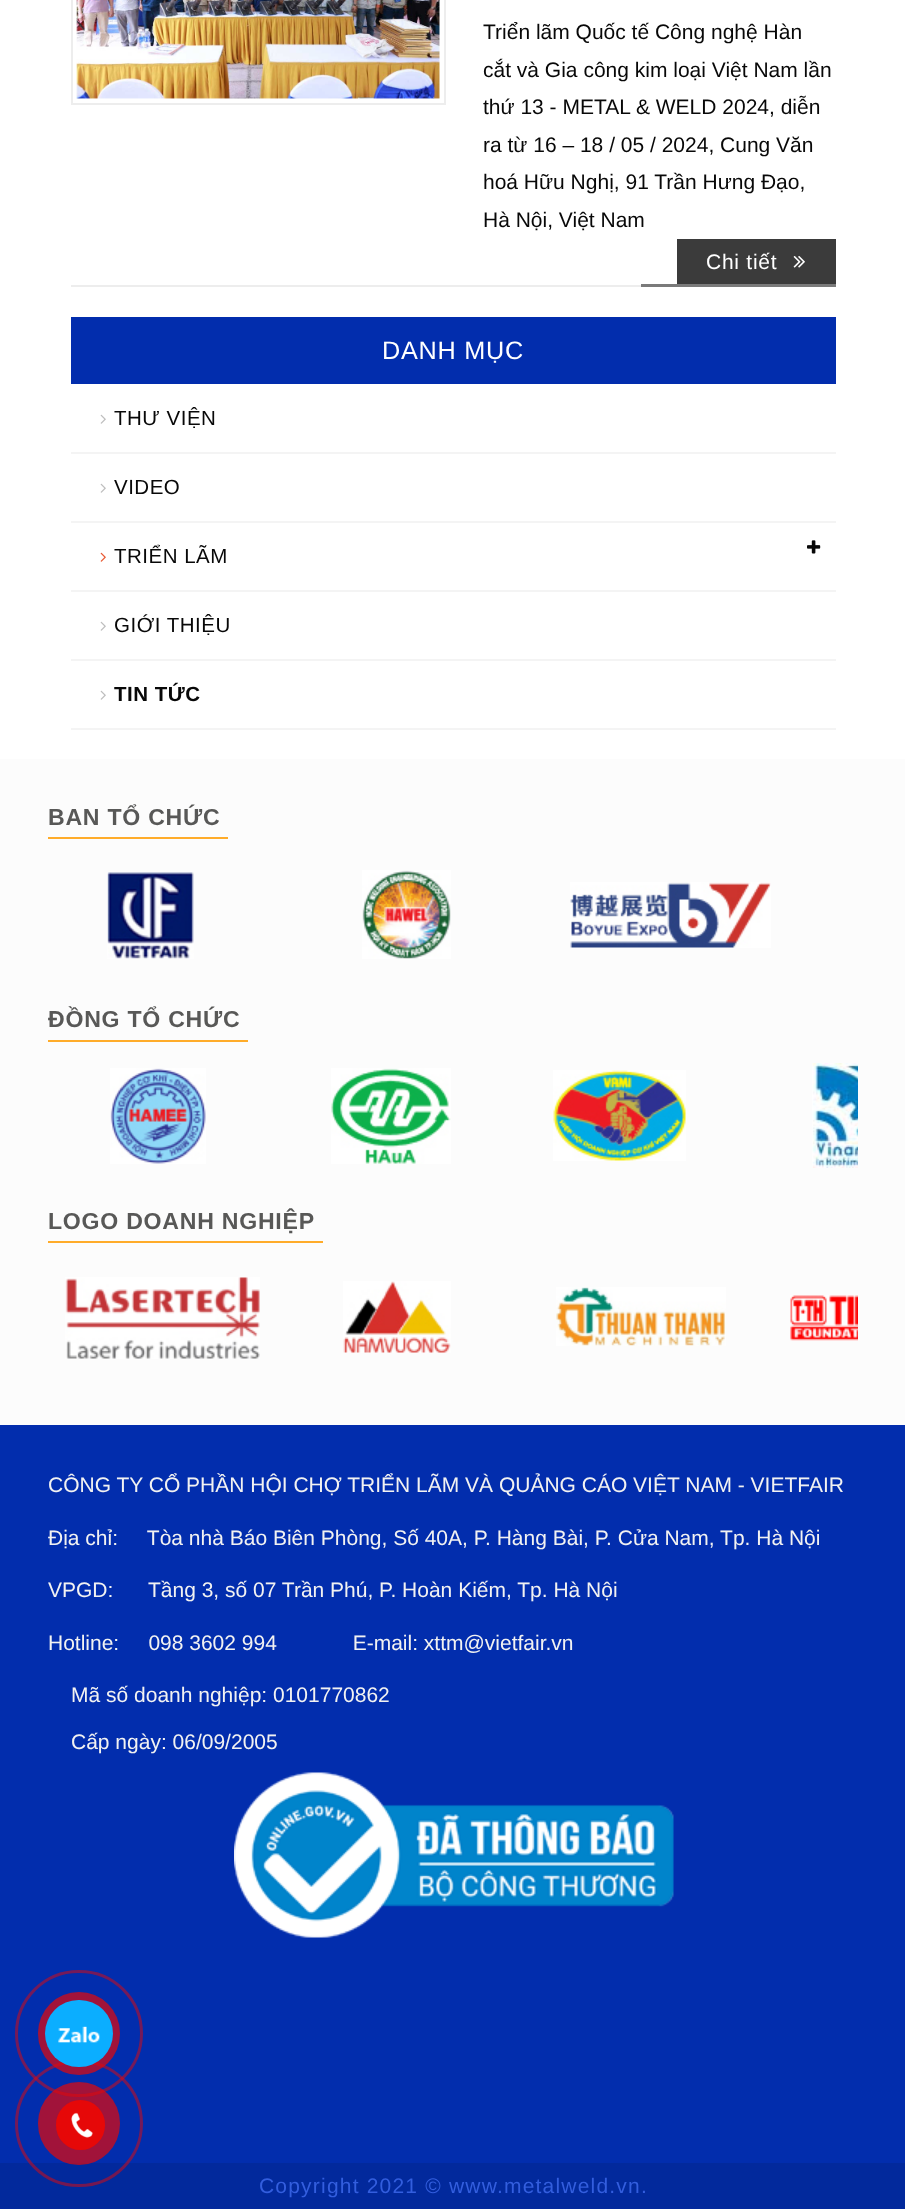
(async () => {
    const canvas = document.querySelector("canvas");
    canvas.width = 905;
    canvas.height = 2209;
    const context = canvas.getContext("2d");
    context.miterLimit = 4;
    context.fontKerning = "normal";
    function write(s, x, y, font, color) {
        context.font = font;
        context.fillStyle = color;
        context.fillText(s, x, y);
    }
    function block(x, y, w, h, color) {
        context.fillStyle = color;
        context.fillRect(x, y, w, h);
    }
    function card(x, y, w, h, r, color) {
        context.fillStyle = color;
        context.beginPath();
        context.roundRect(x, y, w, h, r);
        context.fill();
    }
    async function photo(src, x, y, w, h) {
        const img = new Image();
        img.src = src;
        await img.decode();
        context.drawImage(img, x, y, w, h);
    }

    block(0, 0, 905, 2209, "rgb(255, 255, 255)");
    context.strokeStyle = "rgb(237, 237, 237)";
    context.lineWidth = 2;
    context.strokeRect(72, -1, 373, 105);
    await photo("media/1.png", 76, 0, 364, 99);
    write("Triển lãm Quốc tế Công nghệ Hàn", 483, 39, "21px Liberation Sans", "rgb(8, 8, 8)");
    write("cắt và Gia công kim loại Việt Nam lần", 483, 77, "21px Liberation Sans", "rgb(8, 8, 8)");
    write("thứ 13 - METAL & WELD 2024, diễn", 483, 114, "21px Liberation Sans", "rgb(8, 8, 8)");
    write("ra từ 16 – 18 / 05 / 2024, Cung Văn", 483, 152, "21px Liberation Sans", "rgb(8, 8, 8)");
    write("hoá Hữu Nghị, 91 Trần Hưng Đạo,", 483, 189, "21px Liberation Sans", "rgb(8, 8, 8)");
    write("Hà Nội, Việt Nam", 483, 227, "21px Liberation Sans", "rgb(8, 8, 8)");
    block(71, 285, 570, 2, "rgb(237, 237, 237)");
    block(677, 239, 159, 45, "rgb(59, 59, 59)");
    context.letterSpacing = "0.75px";
    write("Chi tiết", 706, 269, "21px Liberation Sans", "rgb(255, 255, 255)");
    await photo("media/2.png", 793, 256, 12, 12);
    block(641, 284, 195, 3, "rgb(122, 122, 122)");
    block(71, 317, 765, 67, "rgb(2, 45, 173)");
    write("DANH MỤC", 382, 359, "25.25px Liberation Sans", "rgb(255, 255, 255)");
    block(71, 452, 765, 2, "rgb(244, 244, 244)");
    await photo("media/3.png", 100, 414, 6, 10);
    context.letterSpacing = "0.5px";
    write("THƯ VIỆN", 114, 425, "20.5px Liberation Sans", "rgb(8, 8, 8)");
    block(71, 521, 765, 2, "rgb(244, 244, 244)");
    await photo("media/3.png", 100, 483, 6, 10);
    write("VIDEO", 114, 494, "20.5px Liberation Sans", "rgb(8, 8, 8)");
    block(71, 590, 765, 2, "rgb(244, 244, 244)");
    await photo("media/4.png", 100, 552, 6, 10);
    write("TRIỂN LÃM", 114, 563, "20.5px Liberation Sans", "rgb(8, 8, 8)");
    await photo("media/5.png", 807, 540, 14, 14);
    block(71, 659, 765, 2, "rgb(244, 244, 244)");
    await photo("media/3.png", 100, 621, 6, 10);
    write("GIỚI THIỆU", 114, 632, "20.5px Liberation Sans", "rgb(8, 8, 8)");
    block(71, 728, 765, 2, "rgb(244, 244, 244)");
    await photo("media/3.png", 100, 690, 6, 10);
    write("TIN TỨC", 114, 701, "bold 20.5px Liberation Sans", "rgb(8, 8, 8)");
    block(0, 759, 905, 666, "rgb(252, 252, 252)");
    context.letterSpacing = "0.75px";
    write("BAN TỔ CHỨC", 48, 825, "bold 23.1px Liberation Sans", "rgb(88, 88, 87)");
    block(48, 837, 180, 2, "rgb(255, 172, 42)");
    await photo("media/6.png", 107, 872, 87, 87);
    await photo("media/7.png", 362, 870, 89, 89);
    await photo("media/8.png", 570, 882, 201, 66);
    write("ĐỒNG TỔ CHỨC", 48, 1027, "bold 23.1px Liberation Sans", "rgb(88, 88, 87)");
    block(48, 1040, 200, 2, "rgb(255, 172, 42)");
    await photo("media/9.png", 110, 1068, 96, 96);
    await photo("media/10.png", 331, 1068, 120, 96);
    await photo("media/11.png", 553, 1070, 133, 91);
    await photo("media/12.png", 812, 1063, 46, 105);
    write("LOGO DOANH NGHIỆP", 48, 1229, "bold 23.1px Liberation Sans", "rgb(88, 88, 87)");
    block(48, 1241, 275, 2, "rgb(255, 172, 42)");
    await photo("media/13.png", 65, 1277, 195, 82);
    await photo("media/14.png", 343, 1281, 108, 72);
    await photo("media/15.png", 556, 1287, 170, 59);
    await photo("media/16.png", 790, 1295, 68, 46);
    block(0, 1425, 905, 738, "rgb(2, 45, 173)");
    context.letterSpacing = "0px";
    write("CÔNG TY CỔ PHẦN HỘI CHỢ TRIỂN LÃM VÀ QUẢNG CÁO VIỆT NAM - VIETFAIR", 48, 1492, "21px Liberation Sans", "rgb(242, 242, 242)");
    write("Địa chỉ:     Tòa nhà Báo Biên Phòng, Số 40A, P. Hàng Bài, P. Cửa Nam, Tp. Hà Nội", 48, 1545, "21px Liberation Sans", "rgb(242, 242, 242)");
    write("VPGD:      Tầng 3, số 07 Trần Phú, P. Hoàn Kiếm, Tp. Hà Nội", 48, 1597, "21px Liberation Sans", "rgb(242, 242, 242)");
    write("Hotline:     098 3602 994             E-mail: xttm@vietfair.vn", 48, 1650, "21px Liberation Sans", "rgb(242, 242, 242)");
    write("Mã số doanh nghiệp: 0101770862", 71, 1702, "21px Liberation Sans", "rgb(242, 242, 242)");
    write("Cấp ngày: 06/09/2005", 71, 1749, "21px Liberation Sans", "rgb(242, 242, 242)");
    await photo("media/17.png", 234, 1772, 440, 166);
    block(0, 2163, 905, 46, "rgb(2, 41, 156)");
    context.letterSpacing = "1.2px";
    write("Copyright 2021 © www.metalweld.vn.", 259, 2193, "21px Liberation Sans", "rgb(51, 94, 222)");
    context.beginPath();
    context.roundRect(16.5, 2061.5, 125, 124, 62);
    context.strokeStyle = "rgba(230, 8, 8, 0.5)";
    context.lineWidth = 3;
    context.stroke();
    card(38, 2082, 82, 83, 41, "rgba(230, 8, 8, 0.7)");
    context.beginPath();
    context.roundRect(16.5, 1971.5, 125, 124, 62);
    context.stroke();
    card(38, 1992, 82, 83, 41, "rgba(230, 8, 8, 0.7)");
    card(45, 2000, 68, 67, 33.5, "rgb(11, 174, 255)");
    await photo("media/18.png", 58, 2026, 42, 17);
    card(56, 2100, 49, 50, 24.5, "rgb(230, 8, 8)");
    await photo("media/19.png", 71, 2112, 22, 26);
})();
